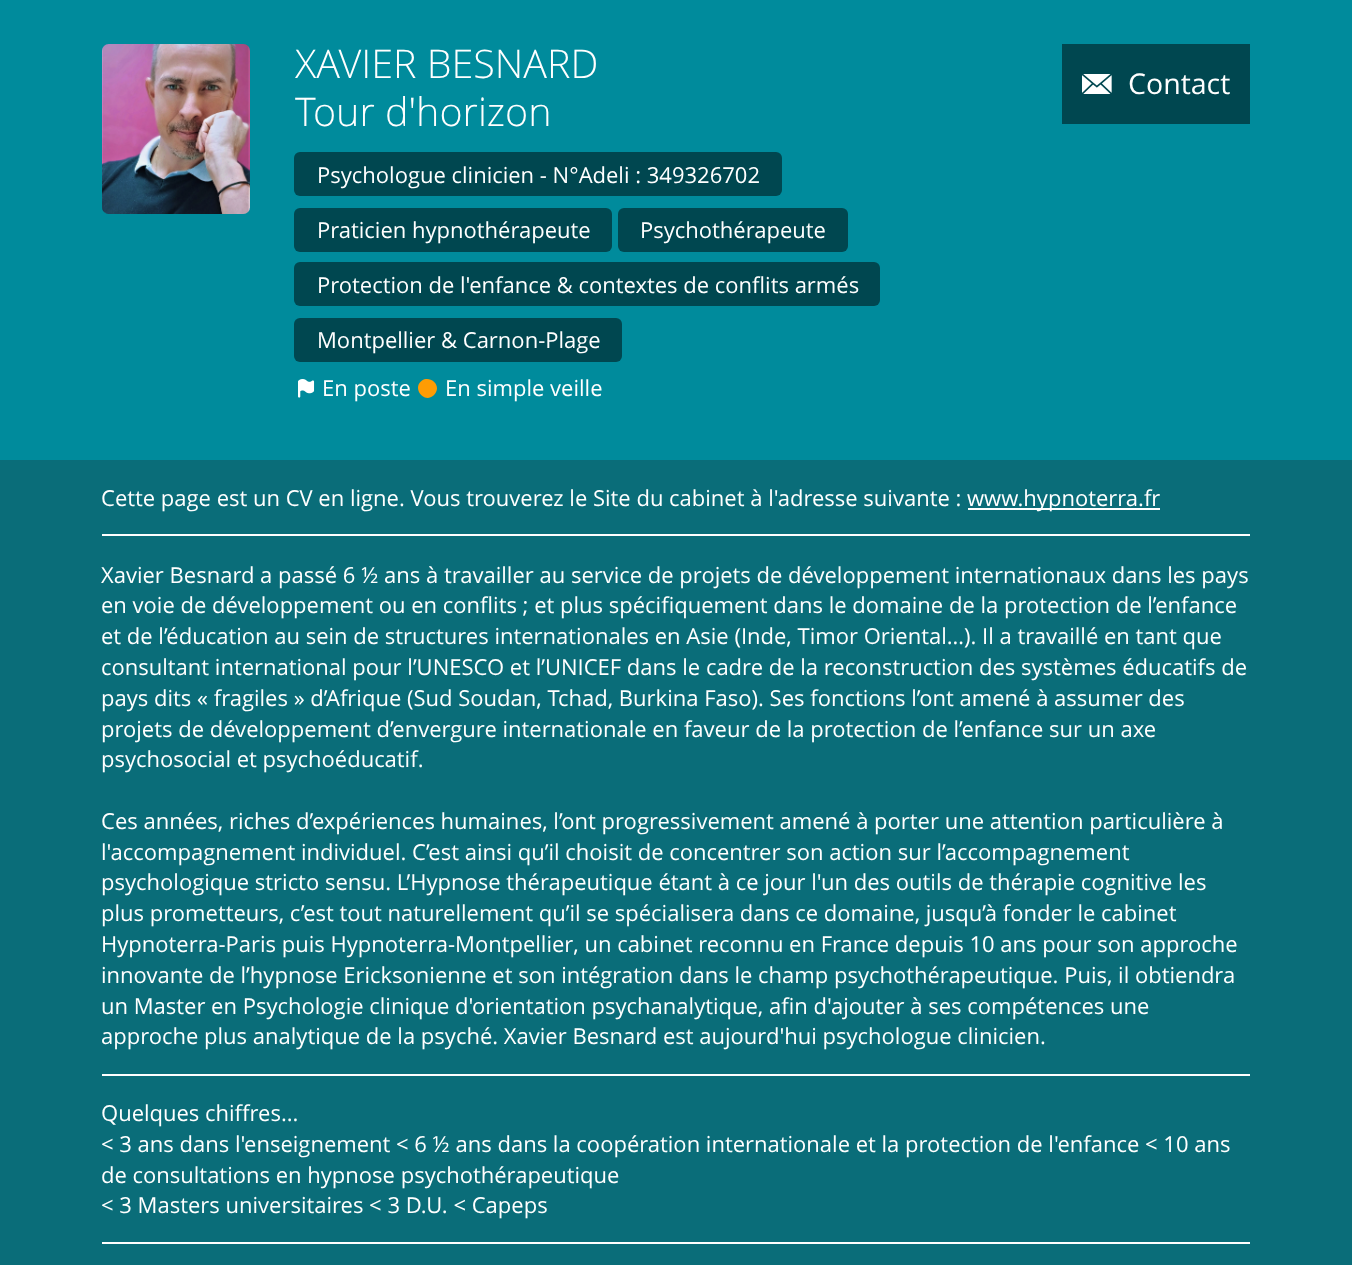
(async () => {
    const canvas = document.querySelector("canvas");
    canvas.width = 1352;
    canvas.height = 1265;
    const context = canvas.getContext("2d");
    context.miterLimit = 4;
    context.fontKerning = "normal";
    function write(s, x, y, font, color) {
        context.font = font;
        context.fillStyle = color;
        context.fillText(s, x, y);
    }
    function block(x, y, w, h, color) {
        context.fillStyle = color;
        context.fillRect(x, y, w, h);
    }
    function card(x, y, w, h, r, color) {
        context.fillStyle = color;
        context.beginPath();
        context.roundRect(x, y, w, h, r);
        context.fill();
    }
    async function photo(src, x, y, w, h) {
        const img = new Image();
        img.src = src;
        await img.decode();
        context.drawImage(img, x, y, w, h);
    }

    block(0, 0, 1352, 1265, "rgb(0, 139, 156)");
    await photo("media/1.png", 102, 44, 148, 170);
    write("XAVIER BESNARD", 295, 78, "300 39.5px Open Sans", "rgb(255, 255, 255)");
    write("Tour d'horizon", 295, 126, "300 39.5px Open Sans", "rgb(255, 255, 255)");
    card(294, 152, 488, 44, 6, "rgb(0, 71, 80)");
    write("Psychologue clinicien - N°Adeli : 349326702", 317, 183, "22px Open Sans", "rgb(255, 255, 255)");
    card(294, 208, 318, 44, 6, "rgb(0, 71, 80)");
    write("Praticien hypnothérapeute", 317, 238, "22px Open Sans", "rgb(255, 255, 255)");
    card(618, 208, 230, 44, 6, "rgb(0, 71, 80)");
    write("Psychothérapeute", 640, 238, "22px Open Sans", "rgb(255, 255, 255)");
    card(294, 262, 586, 44, 6, "rgb(0, 71, 80)");
    write("Protection de l'enfance & contextes de conflits armés", 317, 293, "22px Open Sans", "rgb(255, 255, 255)");
    card(294, 318, 328, 44, 6, "rgb(0, 71, 80)");
    write("Montpellier & Carnon-Plage", 317, 348, "22px Open Sans", "rgb(255, 255, 255)");
    await photo("media/2.png", 298, 379, 17, 19);
    write("En poste", 322, 396, "22px Open Sans", "rgb(255, 255, 255)");
    context.fillStyle = "rgb(255, 156, 4)";
    context.beginPath();
    context.moveTo(437, 388.5);
    context.bezierCurveTo(437, 391, 435.5, 393.5, 433.5, 395.5);
    context.bezierCurveTo(424, 404, 411.5, 388, 422, 380.5);
    context.bezierCurveTo(428, 376.5, 437, 381, 437, 388.5);
    context.closePath();
    context.fill();
    write("En simple veille", 445, 396, "22px Open Sans", "rgb(255, 255, 255)");
    block(1062, 44, 188, 80, "rgb(0, 71, 80)");
    await photo("media/3.png", 1082, 74, 30, 20);
    write("Contact", 1128, 94, "28.5px Open Sans", "rgb(255, 255, 255)");
    block(0, 460, 1352, 805, "rgb(10, 109, 121)");
    write("Cette page est un CV en ligne. Vous trouverez le Site du cabinet à l'adresse suivante :", 101, 506, "22px Open Sans", "rgb(255, 255, 255)");
    block(968, 508, 192, 2, "rgb(255, 255, 255)");
    write("www.hypnoterra.fr", 967, 506, "22px Open Sans", "rgb(255, 255, 255)");
    block(102, 534, 1148, 2, "rgb(255, 255, 255)");
    write("Xavier Besnard a passé 6 ½ ans à travailler au service de projets de développement internationaux dans les pays", 101, 583, "22px Open Sans", "rgb(255, 255, 255)");
    write("en voie de développement ou en conflits ; et plus spécifiquement dans le domaine de la protection de l’enfance", 101, 613, "22px Open Sans", "rgb(255, 255, 255)");
    write("et de l’éducation au sein de structures internationales en Asie (Inde, Timor Oriental…). Il a travaillé en tant que", 101, 644, "22px Open Sans", "rgb(255, 255, 255)");
    write("consultant international pour l’UNESCO et l’UNICEF dans le cadre de la reconstruction des systèmes éducatifs de", 101, 675, "22px Open Sans", "rgb(255, 255, 255)");
    write("pays dits « fragiles » d’Afrique (Sud Soudan, Tchad, Burkina Faso). Ses fonctions l’ont amené à assumer des", 101, 706, "22px Open Sans", "rgb(255, 255, 255)");
    write("projets de développement d’envergure internationale en faveur de la protection de l’enfance sur un axe", 101, 737, "22px Open Sans", "rgb(255, 255, 255)");
    write("psychosocial et psychoéducatif.", 101, 767, "22px Open Sans", "rgb(255, 255, 255)");
    write("Ces années, riches d’expériences humaines, l’ont progressivement amené à porter une attention particulière à", 101, 829, "22px Open Sans", "rgb(255, 255, 255)");
    write("l'accompagnement individuel. C’est ainsi qu’il choisit de concentrer son action sur l’accompagnement", 101, 860, "22px Open Sans", "rgb(255, 255, 255)");
    write("psychologique stricto sensu. L’Hypnose thérapeutique étant à ce jour l'un des outils de thérapie cognitive les", 101, 890, "22px Open Sans", "rgb(255, 255, 255)");
    write("plus prometteurs, c’est tout naturellement qu’il se spécialisera dans ce domaine, jusqu’à fonder le cabinet", 101, 921, "22px Open Sans", "rgb(255, 255, 255)");
    write("Hypnoterra-Paris puis Hypnoterra-Montpellier, un cabinet reconnu en France depuis 10 ans pour son approche", 101, 952, "22px Open Sans", "rgb(255, 255, 255)");
    write("innovante de l’hypnose Ericksonienne et son intégration dans le champ psychothérapeutique. Puis, il obtiendra", 101, 983, "22px Open Sans", "rgb(255, 255, 255)");
    write("un Master en Psychologie clinique d'orientation psychanalytique, afin d'ajouter à ses compétences une", 101, 1014, "22px Open Sans", "rgb(255, 255, 255)");
    write("approche plus analytique de la psyché. Xavier Besnard est aujourd'hui psychologue clinicien.", 101, 1044, "22px Open Sans", "rgb(255, 255, 255)");
    block(102, 1074, 1148, 2, "rgb(255, 255, 255)");
    write("Quelques chiffres...", 101, 1121, "22px Open Sans", "rgb(255, 255, 255)");
    write("< 3 ans dans l'enseignement < 6 ½ ans dans la coopération internationale et la protection de l'enfance < 10 ans", 101, 1152, "22px Open Sans", "rgb(255, 255, 255)");
    write("de consultations en hypnose psychothérapeutique", 101, 1183, "22px Open Sans", "rgb(255, 255, 255)");
    write("< 3 Masters universitaires < 3 D.U. < Capeps", 101, 1213, "22px Open Sans", "rgb(255, 255, 255)");
    block(102, 1242, 1148, 2, "rgb(255, 255, 255)");
})();
